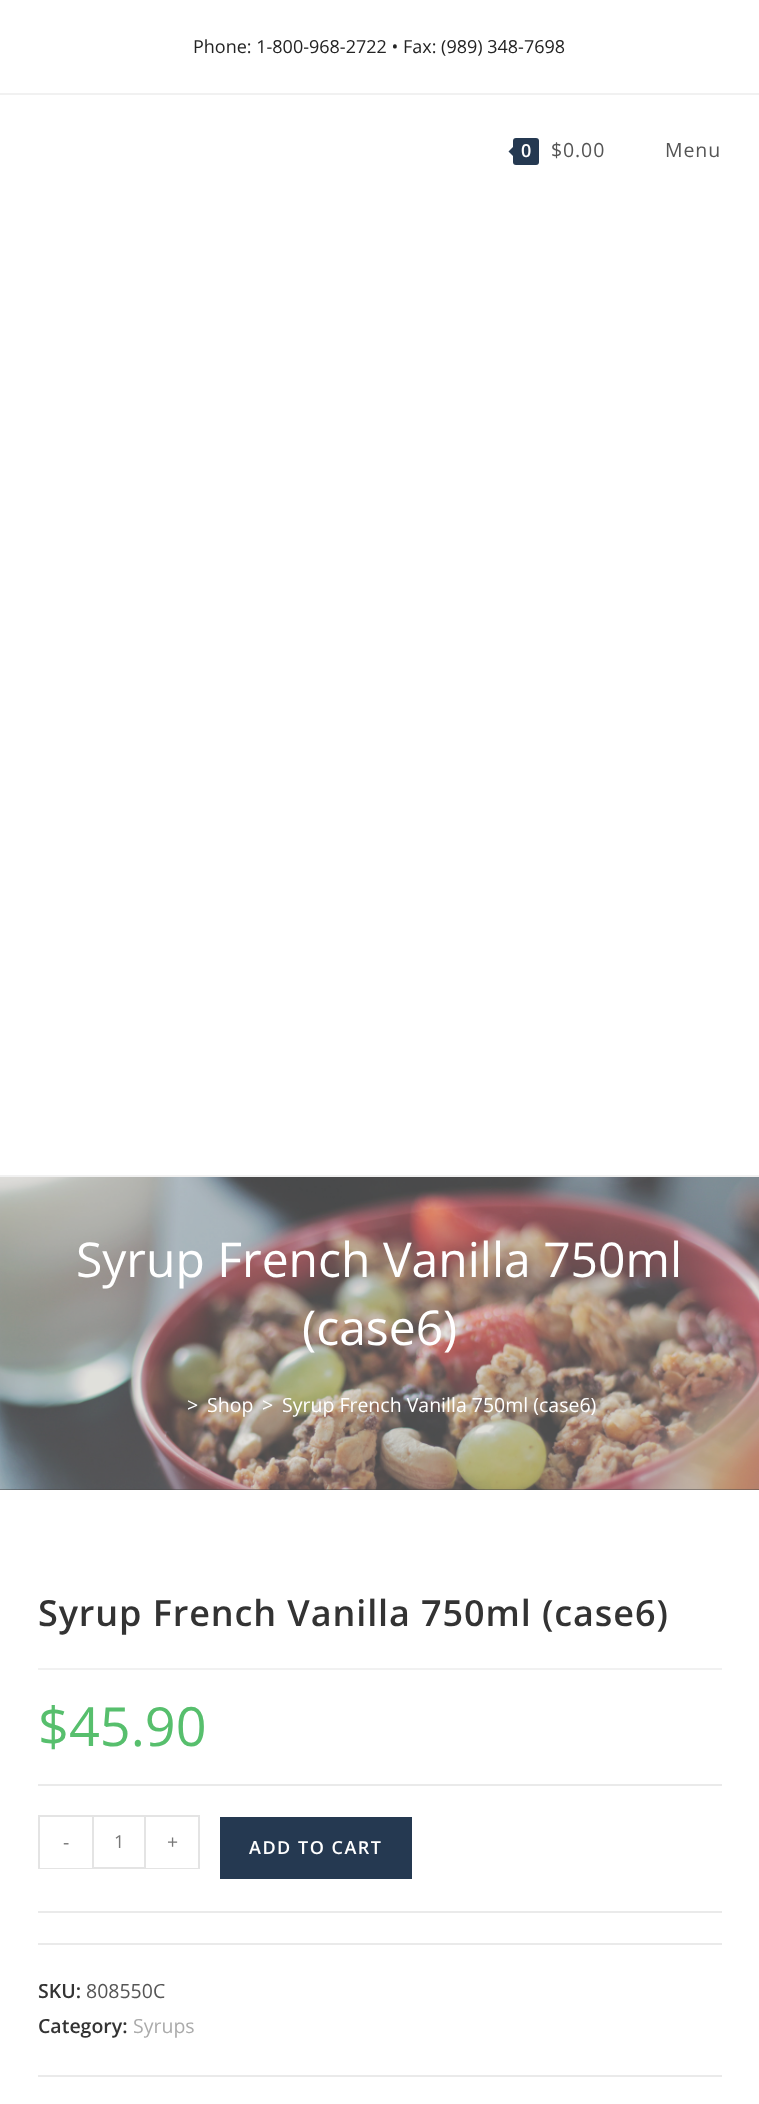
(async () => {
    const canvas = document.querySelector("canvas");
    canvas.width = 759;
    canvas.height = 2104;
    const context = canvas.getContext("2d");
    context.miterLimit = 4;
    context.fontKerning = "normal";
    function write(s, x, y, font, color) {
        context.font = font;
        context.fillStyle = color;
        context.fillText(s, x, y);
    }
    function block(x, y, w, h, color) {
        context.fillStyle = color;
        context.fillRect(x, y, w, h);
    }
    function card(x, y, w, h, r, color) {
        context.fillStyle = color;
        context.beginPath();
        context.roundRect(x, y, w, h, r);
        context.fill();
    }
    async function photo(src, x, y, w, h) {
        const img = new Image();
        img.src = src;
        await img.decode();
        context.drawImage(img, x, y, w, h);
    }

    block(0, 0, 759, 2104, "rgb(255, 255, 255)");
    block(0, 93, 759, 2, "rgb(241, 241, 241)");
    write("Phone: 1-800-968-2722 • Fax: (989) 348-7698", 193, 53, "18px Open Sans", "rgb(35, 35, 35)");
    block(0, 1175, 759, 2, "rgb(241, 241, 241)");
    card(513, 138, 26, 27, 3, "rgb(37, 57, 81)");
    context.beginPath();
    context.moveTo(516, 144);
    context.lineTo(516, 159);
    context.lineTo(508.5, 151.5);
    context.closePath();
    context.fill();
    context.letterSpacing = "0.9px";
    write("0", 521, 157, "600 18px Open Sans", "rgb(255, 255, 255)");
    write("$0.00", 551, 157, "19.5px Open Sans", "rgb(85, 85, 85)");
    write("Menu", 665, 157, "19.5px Open Sans", "rgb(85, 85, 85)");
    block(0, 1489, 759, 1, "rgb(72, 72, 72)");
    await photo("media/1.png", 0, 1177, 759, 313);
    context.letterSpacing = "0px";
    write("Syrup French Vanilla 750ml", 76, 1277, "48px Open Sans", "rgb(255, 255, 255)");
    write("(case6)", 302, 1345, "48px Open Sans", "rgb(255, 255, 255)");
    write(">", 187, 1412, "19.5px Open Sans", "rgb(255, 255, 255)");
    write("Shop", 207, 1412, "19.5px Open Sans", "rgb(255, 255, 255)");
    write(">", 262, 1412, "19.5px Open Sans", "rgb(255, 255, 255)");
    write("Syrup French Vanilla 750ml (case6)", 282, 1412, "19.5px Open Sans", "rgb(255, 255, 255)");
    block(38, 1668, 684, 2, "rgb(241, 241, 241)");
    context.letterSpacing = "0.9px";
    write("Syrup French Vanilla 750ml (case6)", 38, 1626, "600 36px Open Sans", "rgb(51, 51, 51)");
    context.letterSpacing = "0px";
    write("$45.90", 38, 1746, "54px Open Sans", "rgb(87, 191, 109)");
    block(38, 1784, 684, 2, "rgb(234, 234, 234)");
    block(38, 1911, 684, 2, "rgb(234, 234, 234)");
    block(38, 1815, 54, 2, "rgb(228, 228, 228)");
    block(38, 1868, 54, 1, "rgb(228, 228, 228)");
    block(38, 1815, 2, 54, "rgb(228, 228, 228)");
    write("-", 63, 1849, "19.5px Open Sans", "rgb(119, 119, 119)");
    context.strokeStyle = "rgb(228, 228, 228)";
    context.lineWidth = 2;
    context.strokeRect(93, 1816, 52, 52);
    write("1", 114, 1848, "18px Open Sans", "rgb(119, 119, 119)");
    block(146, 1815, 54, 2, "rgb(228, 228, 228)");
    block(198, 1815, 2, 54, "rgb(228, 228, 228)");
    block(146, 1868, 54, 1, "rgb(228, 228, 228)");
    write("+", 167, 1849, "19.5px Open Sans", "rgb(119, 119, 119)");
    block(220, 1817, 192, 62, "rgb(37, 57, 81)");
    context.letterSpacing = "1.5px";
    write("ADD TO CART", 249, 1854, "600 18px Open Sans", "rgb(255, 255, 255)");
    block(38, 1943, 684, 2, "rgb(234, 234, 234)");
    block(38, 2075, 684, 2, "rgb(234, 234, 234)");
    context.letterSpacing = "0px";
    write("SKU:", 38, 1998, "600 19.5px Open Sans", "rgb(51, 51, 51)");
    write("808550C", 86, 1998, "19.5px Open Sans", "rgb(85, 85, 85)");
    write("Category:", 38, 2033, "600 19.5px Open Sans", "rgb(51, 51, 51)");
    write("Syrups", 133, 2033, "19.5px Open Sans", "rgb(171, 171, 171)");
})();
